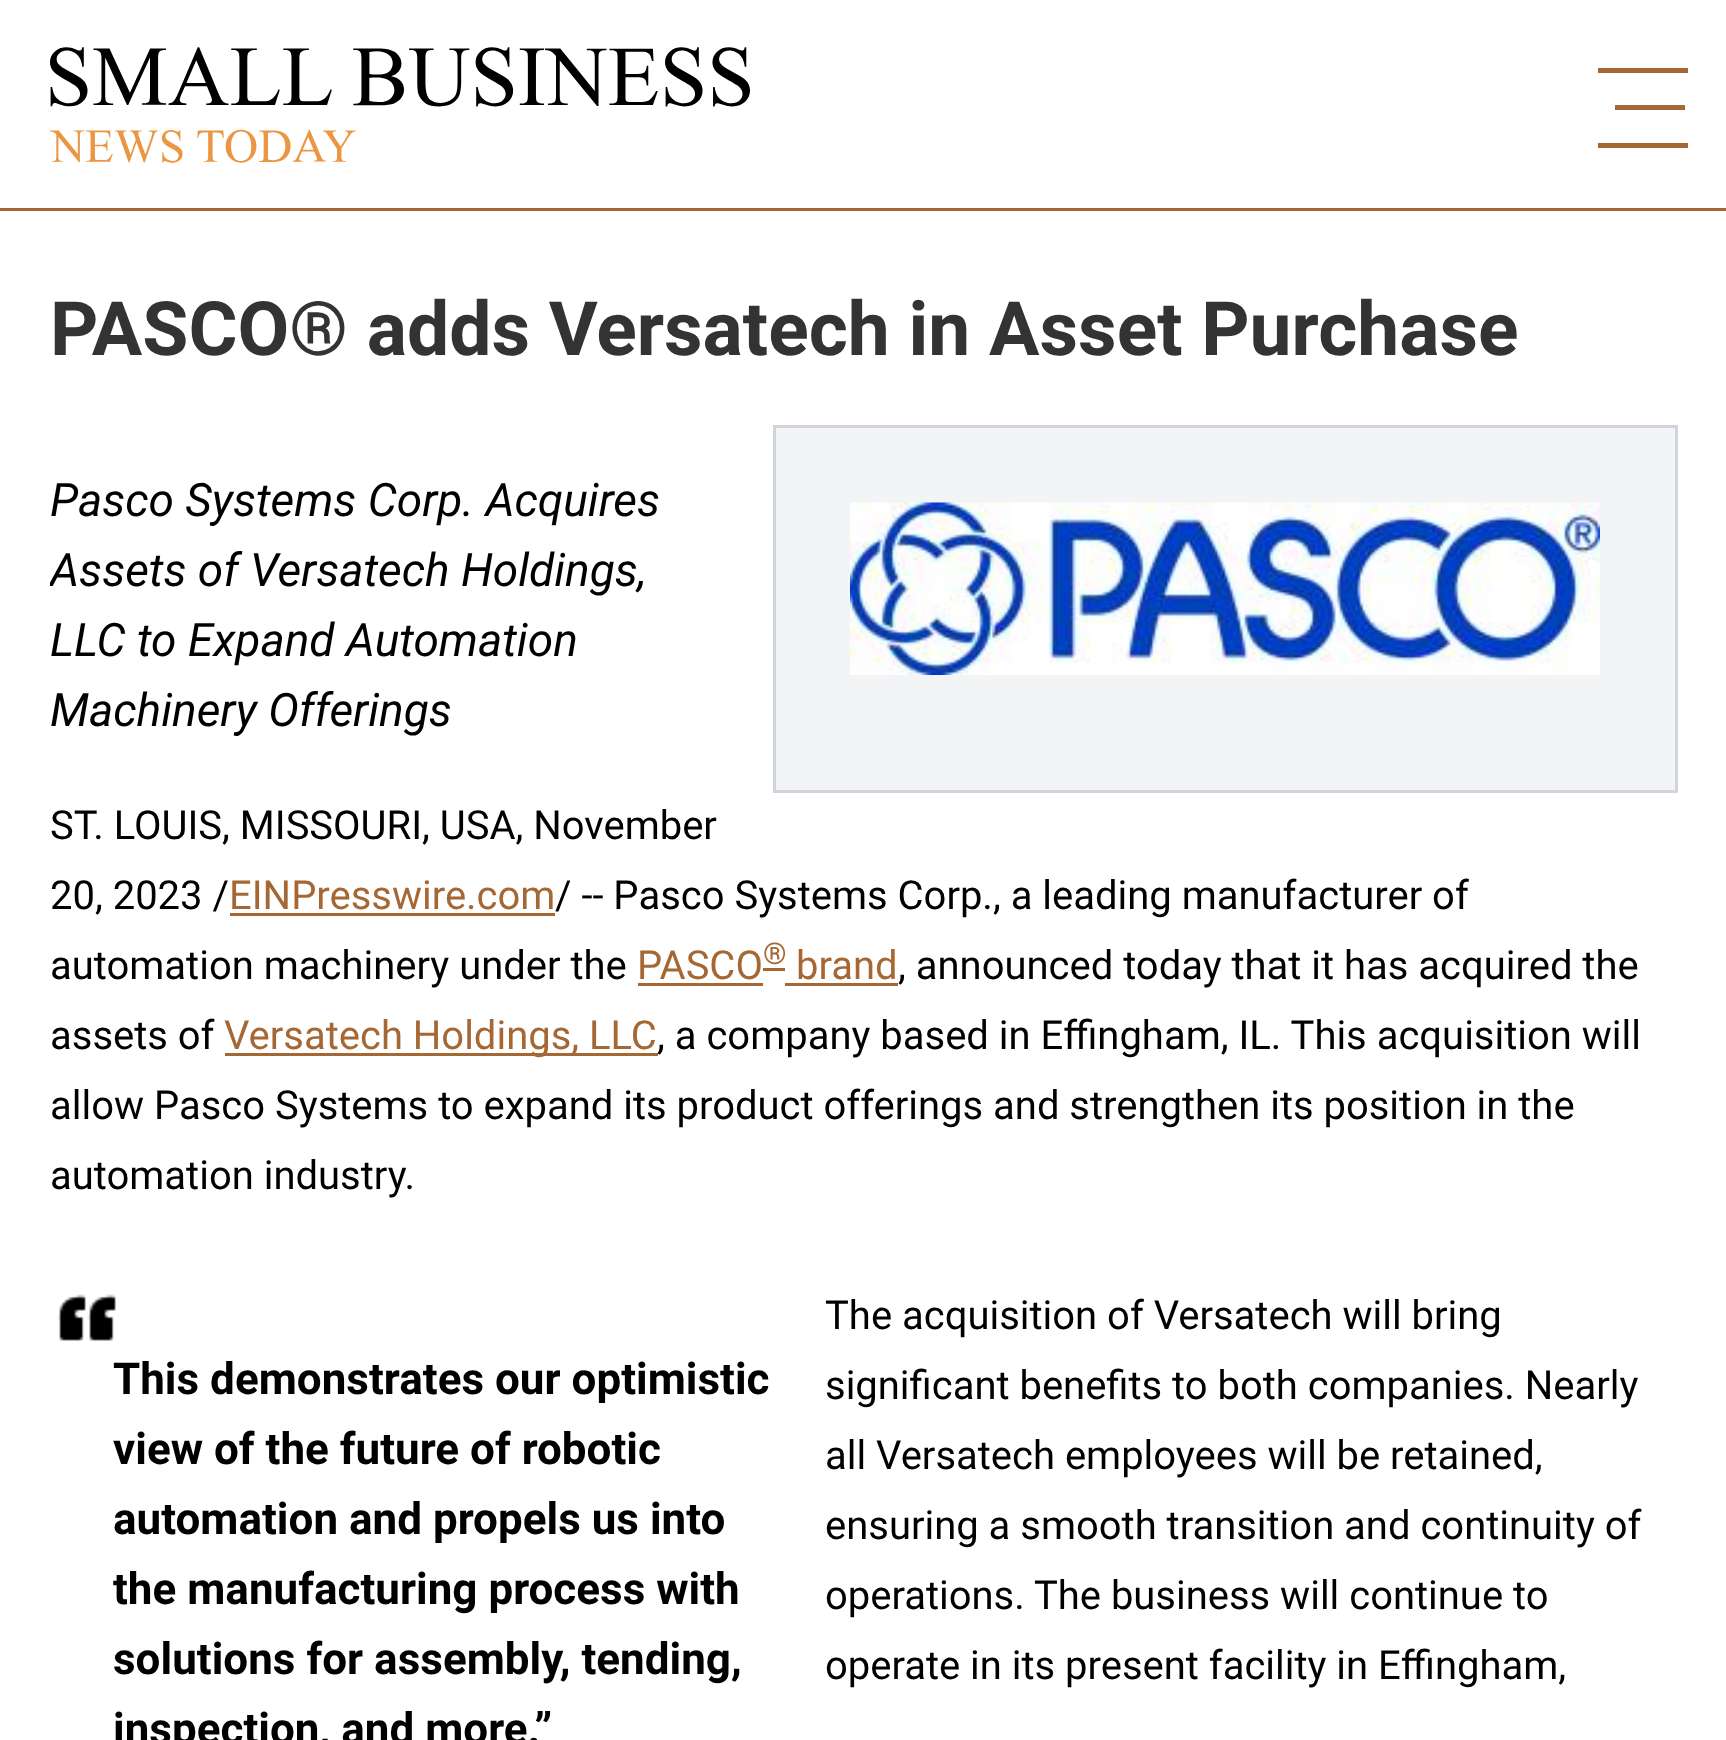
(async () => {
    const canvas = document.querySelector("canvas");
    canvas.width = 1726;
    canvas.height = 1740;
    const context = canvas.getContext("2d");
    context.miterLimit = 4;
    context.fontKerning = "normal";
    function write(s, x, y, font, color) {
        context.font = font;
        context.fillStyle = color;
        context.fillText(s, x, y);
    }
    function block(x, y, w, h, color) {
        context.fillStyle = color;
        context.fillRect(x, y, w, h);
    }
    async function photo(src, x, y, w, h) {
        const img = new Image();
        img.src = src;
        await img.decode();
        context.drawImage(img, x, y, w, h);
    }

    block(0, 0, 1726, 1740, "rgb(255, 255, 255)");
    await photo("media/1.png", 50, 47, 700, 116);
    block(1598, 68, 90, 5, "rgb(165, 104, 52)");
    block(1615, 105, 70, 5, "rgb(165, 104, 52)");
    block(1598, 143, 90, 5, "rgb(165, 104, 52)");
    block(0, 208, 1726, 3, "rgb(165, 104, 52)");
    write("PASCO® adds Versatech in Asset Purchase", 50, 355, "bold 75px Roboto", "rgb(51, 51, 51)");
    write("Pasco Systems Corp. Acquires", 50, 516, "italic 46px Roboto", "rgb(0, 0, 0)");
    context.save();
    context.beginPath();
    context.rect(50, 425, 1628, 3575);
    context.clip();
    write("Assets of Versatech Holdings,", 50, 586, "italic 46px Roboto", "rgb(0, 0, 0)");
    context.restore();
    write("LLC to Expand Automation", 50, 656, "italic 46px Roboto", "rgb(0, 0, 0)");
    write("Machinery Offerings", 50, 726, "italic 46px Roboto", "rgb(0, 0, 0)");
    context.fillStyle = "rgb(243, 244, 246)";
    context.beginPath();
    context.rect(774.5, 426.5, 902, 365);
    context.fill();
    context.strokeStyle = "rgb(209, 213, 219)";
    context.lineWidth = 3;
    context.stroke();
    await photo("media/2.png", 850, 502, 750, 173);
    write("ST. LOUIS, MISSOURI, USA, November", 50, 839, "40px Roboto", "rgb(0, 0, 0)");
    write("20, 2023 /", 50, 909, "40px Roboto", "rgb(0, 0, 0)");
    write("EINPresswire.com", 229, 909, "40px Roboto", "rgb(165, 104, 52)");
    block(230, 913, 325, 3, "rgb(165, 104, 52)");
    write("/ -- Pasco Systems Corp., a leading manufacturer of", 555, 909, "40px Roboto", "rgb(0, 0, 0)");
    write("automation machinery under the", 50, 979, "40px Roboto", "rgb(0, 0, 0)");
    write("PASCO", 637, 979, "40px Roboto", "rgb(165, 104, 52)");
    block(638, 983, 125, 3, "rgb(165, 104, 52)");
    block(763, 968, 22, 3, "rgb(165, 104, 52)");
    write("®", 763, 964, "30px Roboto", "rgb(165, 104, 52)");
    write("brand", 796, 979, "40px Roboto", "rgb(165, 104, 52)");
    block(785, 983, 113, 3, "rgb(165, 104, 52)");
    write(", announced today that it has acquired the", 898, 979, "40px Roboto", "rgb(0, 0, 0)");
    write("assets of", 50, 1049, "40px Roboto", "rgb(0, 0, 0)");
    block(225, 1053, 433, 3, "rgb(165, 104, 52)");
    write("Versatech Holdings, LLC", 224, 1049, "40px Roboto", "rgb(165, 104, 52)");
    write(", a company based in Effingham, IL. This acquisition will", 657, 1049, "40px Roboto", "rgb(0, 0, 0)");
    write("allow Pasco Systems to expand its product offerings and strengthen its position in the", 50, 1119, "40px Roboto", "rgb(0, 0, 0)");
    write("automation industry.", 50, 1189, "40px Roboto", "rgb(0, 0, 0)");
    write("The acquisition of Versatech will bring", 825, 1329, "40px Roboto", "rgb(0, 0, 0)");
    await photo("media/3.png", 57, 1294, 59, 47);
    write("This demonstrates our optimistic", 113, 1394, "bold 44px Roboto", "rgb(0, 0, 0)");
    write("view of the future of robotic", 113, 1464, "bold 44px Roboto", "rgb(0, 0, 0)");
    write("automation and propels us into", 113, 1534, "bold 44px Roboto", "rgb(0, 0, 0)");
    write("the manufacturing process with", 113, 1604, "bold 44px Roboto", "rgb(0, 0, 0)");
    write("solutions for assembly, tending,", 113, 1674, "bold 44px Roboto", "rgb(0, 0, 0)");
    write("inspection, and more.”", 113, 1744, "bold 44px Roboto", "rgb(0, 0, 0)");
    write("significant benefits to both companies. Nearly", 825, 1399, "40px Roboto", "rgb(0, 0, 0)");
    write("all Versatech employees will be retained,", 825, 1469, "40px Roboto", "rgb(0, 0, 0)");
    write("ensuring a smooth transition and continuity of", 825, 1539, "40px Roboto", "rgb(0, 0, 0)");
    write("operations. The business will continue to", 825, 1609, "40px Roboto", "rgb(0, 0, 0)");
    write("operate in its present facility in Effingham,", 825, 1679, "40px Roboto", "rgb(0, 0, 0)");
})();
